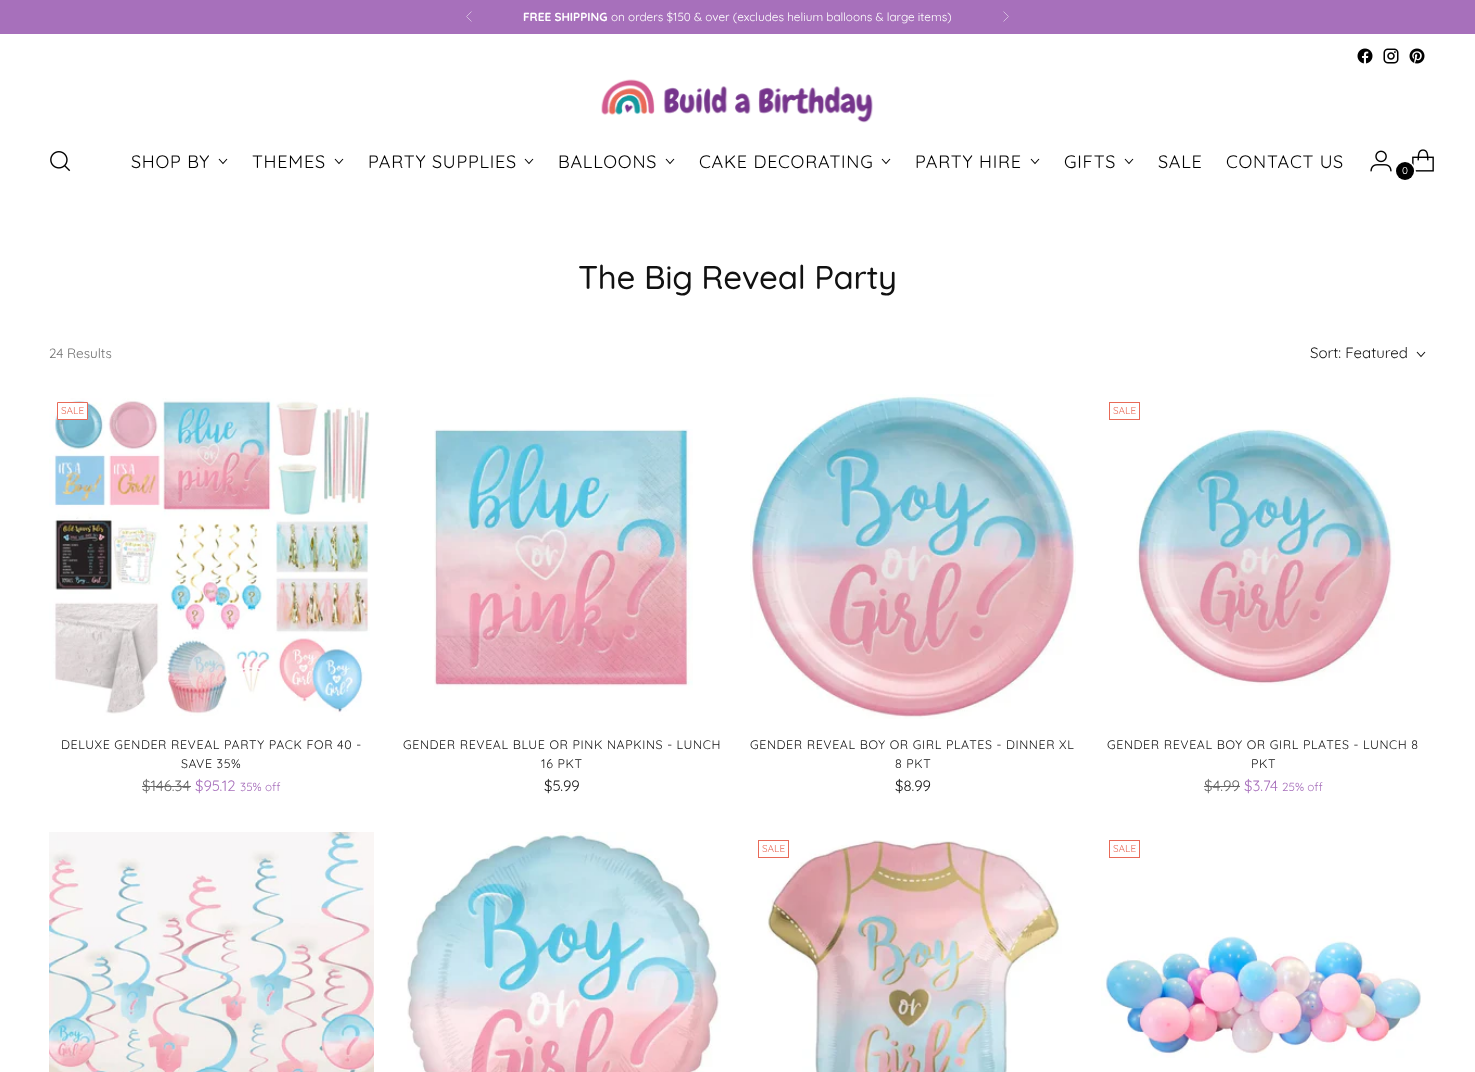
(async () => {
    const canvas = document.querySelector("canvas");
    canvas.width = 1475;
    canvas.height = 1072;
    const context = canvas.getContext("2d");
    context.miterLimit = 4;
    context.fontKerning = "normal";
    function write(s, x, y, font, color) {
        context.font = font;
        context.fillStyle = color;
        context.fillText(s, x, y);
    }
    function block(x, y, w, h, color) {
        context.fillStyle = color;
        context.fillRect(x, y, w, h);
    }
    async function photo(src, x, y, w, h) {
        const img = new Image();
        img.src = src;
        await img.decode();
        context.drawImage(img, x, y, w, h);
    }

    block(0, 0, 1475, 1072, "rgb(255, 255, 255)");
    block(0, 0, 1475, 34, "rgb(167, 112, 187)");
    context.beginPath();
    context.moveTo(471.5, 11.5);
    context.lineTo(466.5, 16.5);
    context.lineTo(471.5, 21.5);
    context.strokeStyle = "rgb(211, 184, 221)";
    context.stroke();
    context.beginPath();
    context.moveTo(1003.5, 21.5);
    context.lineTo(1008.5, 16.5);
    context.lineTo(1003.5, 11.5);
    context.stroke();
    write("FREE SHIPPING", 523, 21, "bold 11.75px Quicksand", "rgb(255, 255, 255)");
    write("on orders $150 & over (excludes helium balloons & large items)", 611, 21, "11.75px Quicksand", "rgb(255, 255, 255)");
    await photo("media/1.png", 1357, 48, 16, 16);
    await photo("media/2.png", 1383, 48, 16, 16);
    await photo("media/3.png", 1409, 48, 16, 16);
    await photo("media/4.png", 601, 79, 272, 44);
    await photo("media/5.png", 50, 151, 21, 21);
    context.letterSpacing = "0.75px";
    write("SHOP BY", 131, 168, "18px Quicksand", "rgb(0, 0, 0)");
    context.beginPath();
    context.moveTo(219, 159);
    context.lineTo(223, 163.5);
    context.lineTo(227, 159);
    context.strokeStyle = "rgb(0, 0, 0)";
    context.lineWidth = 1.1;
    context.stroke();
    write("THEMES", 252, 168, "18px Quicksand", "rgb(0, 0, 0)");
    context.beginPath();
    context.moveTo(335, 159);
    context.lineTo(339, 163.5);
    context.lineTo(343, 159);
    context.stroke();
    write("PARTY SUPPLIES", 368, 168, "18px Quicksand", "rgb(0, 0, 0)");
    context.beginPath();
    context.moveTo(525, 159);
    context.lineTo(529, 163.5);
    context.lineTo(533, 159);
    context.stroke();
    write("BALLOONS", 558, 168, "18px Quicksand", "rgb(0, 0, 0)");
    context.beginPath();
    context.moveTo(666, 159);
    context.lineTo(670, 163.5);
    context.lineTo(674, 159);
    context.stroke();
    write("CAKE DECORATING", 699, 168, "18px Quicksand", "rgb(0, 0, 0)");
    context.beginPath();
    context.moveTo(882, 159);
    context.lineTo(886, 163.5);
    context.lineTo(890, 159);
    context.stroke();
    write("PARTY HIRE", 915, 168, "18px Quicksand", "rgb(0, 0, 0)");
    context.beginPath();
    context.moveTo(1031, 159);
    context.lineTo(1035, 163.5);
    context.lineTo(1039, 159);
    context.stroke();
    write("GIFTS", 1064, 168, "18px Quicksand", "rgb(0, 0, 0)");
    context.beginPath();
    context.moveTo(1125, 159);
    context.lineTo(1129, 163.5);
    context.lineTo(1133, 159);
    context.stroke();
    write("SALE", 1158, 168, "18px Quicksand", "rgb(0, 0, 0)");
    write("CONTACT US", 1226, 168, "18px Quicksand", "rgb(0, 0, 0)");
    await photo("media/6.png", 1370, 150, 22, 22);
    await photo("media/7.png", 1412, 149, 22, 23);
    context.beginPath();
    context.arc(1405.5, 171.5, 9.5, 0, Math.PI * 2);
    context.strokeStyle = "rgb(255, 255, 255)";
    context.lineWidth = 2;
    context.stroke();
    context.beginPath();
    context.arc(1405, 171, 9, 0, Math.PI * 2);
    context.fill();
    context.letterSpacing = "0px";
    write("0", 1402, 174, "10px Quicksand", "rgb(255, 255, 255)");
    context.letterSpacing = "-0.3px";
    write("The Big Reveal Party", 578, 289, "500 33px Quicksand", "rgb(17, 17, 17)");
    context.letterSpacing = "0px";
    write("24 Results", 49, 358, "13.5px Quicksand", "rgb(112, 112, 112)");
    write("Sort: Featured", 1310, 358, "15px Quicksand", "rgb(17, 17, 17)");
    context.beginPath();
    context.moveTo(1417, 352);
    context.lineTo(1421, 356.5);
    context.lineTo(1425, 352);
    context.strokeStyle = "rgb(17, 17, 17)";
    context.lineWidth = 1.1;
    context.stroke();
    await photo("media/8.png", 49, 398, 321, 318);
    context.fillStyle = "rgb(255, 255, 255)";
    context.beginPath();
    context.rect(57.5, 402.5, 30, 17);
    context.fill();
    context.strokeStyle = "rgb(232, 106, 88)";
    context.lineWidth = 1;
    context.stroke();
    write("SALE", 61, 414, "10px Quicksand", "rgb(232, 106, 88)");
    context.letterSpacing = "0.6px";
    write("DELUXE GENDER REVEAL PARTY PACK FOR 40 -", 61, 749, "12.45px Quicksand", "rgb(17, 17, 17)");
    write("SAVE 35%", 181, 768, "12.45px Quicksand", "rgb(17, 17, 17)");
    context.letterSpacing = "0px";
    write("$146.34", 142, 791, "15px Quicksand", "rgb(100, 100, 100)");
    block(142, 786, 49, 1, "rgb(100, 100, 100)");
    write("$95.12", 195, 791, "15px Quicksand", "rgb(167, 112, 187)");
    write("35% off", 240, 791, "11.75px Quicksand", "rgb(167, 112, 187)");
    await photo("media/9.png", 434, 429, 259, 261);
    context.letterSpacing = "0.6px";
    write("GENDER REVEAL BLUE OR PINK NAPKINS - LUNCH", 403, 749, "12.45px Quicksand", "rgb(17, 17, 17)");
    write("16 PKT", 541, 768, "12.45px Quicksand", "rgb(17, 17, 17)");
    context.letterSpacing = "0px";
    write("$5.99", 544, 791, "15px Quicksand", "rgb(17, 17, 17)");
    await photo("media/10.png", 750, 394, 326, 325);
    context.letterSpacing = "0.6px";
    write("GENDER REVEAL BOY OR GIRL PLATES - DINNER XL", 750, 749, "12.45px Quicksand", "rgb(17, 17, 17)");
    write("8 PKT", 895, 768, "12.45px Quicksand", "rgb(17, 17, 17)");
    context.letterSpacing = "0px";
    write("$8.99", 895, 791, "15px Quicksand", "rgb(17, 17, 17)");
    context.strokeRect(1109.5, 402.5, 30, 17);
    write("SALE", 1113, 414, "10px Quicksand", "rgb(232, 106, 88)");
    await photo("media/11.png", 1136, 429, 259, 257);
    context.letterSpacing = "0.6px";
    write("GENDER REVEAL BOY OR GIRL PLATES - LUNCH 8", 1107, 749, "12.45px Quicksand", "rgb(17, 17, 17)");
    write("PKT", 1251, 768, "12.45px Quicksand", "rgb(17, 17, 17)");
    context.letterSpacing = "0px";
    write("$4.99", 1204, 791, "15px Quicksand", "rgb(100, 100, 100)");
    block(1204, 786, 36, 1, "rgb(100, 100, 100)");
    write("$3.74", 1244, 791, "15px Quicksand", "rgb(167, 112, 187)");
    write("25% off", 1282, 791, "11.75px Quicksand", "rgb(167, 112, 187)");
    await photo("media/12.png", 49, 832, 325, 240);
    await photo("media/13.png", 407, 832, 314, 240);
    await photo("media/14.png", 767, 840, 295, 232);
    context.strokeRect(758.5, 840.5, 30, 17);
    write("SALE", 762, 852, "10px Quicksand", "rgb(232, 106, 88)");
    context.strokeRect(1109.5, 840.5, 30, 17);
    write("SALE", 1113, 852, "10px Quicksand", "rgb(232, 106, 88)");
    await photo("media/15.png", 1101, 936, 321, 122);
})();
